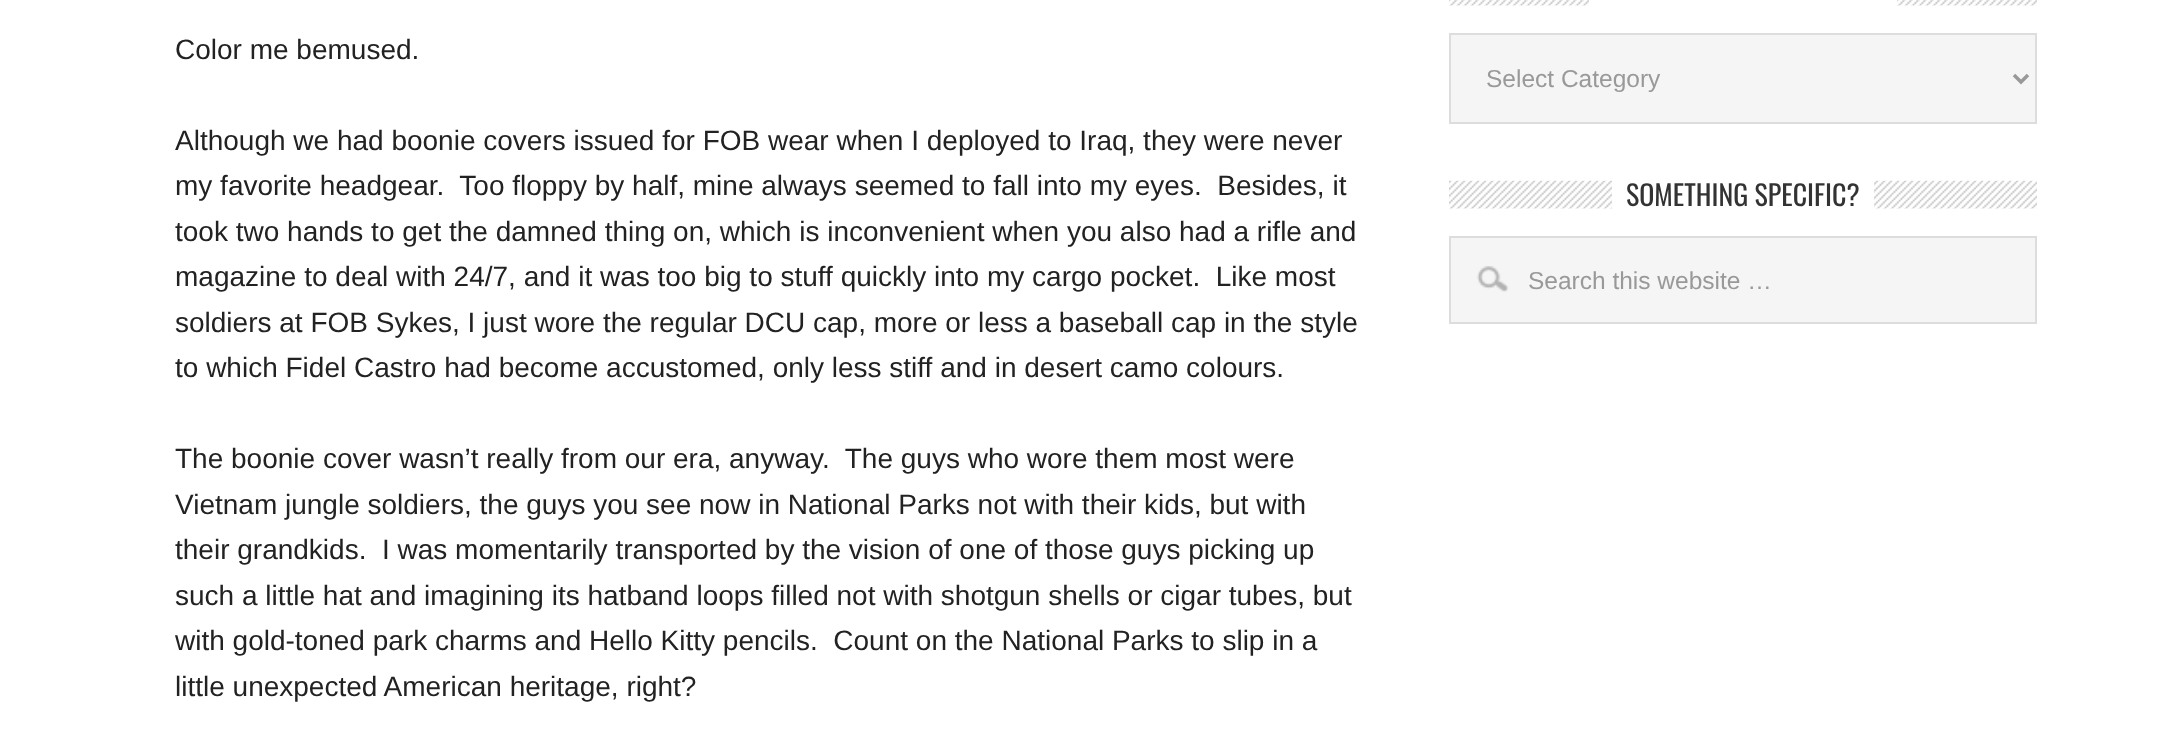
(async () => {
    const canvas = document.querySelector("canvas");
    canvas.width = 2183;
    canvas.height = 748;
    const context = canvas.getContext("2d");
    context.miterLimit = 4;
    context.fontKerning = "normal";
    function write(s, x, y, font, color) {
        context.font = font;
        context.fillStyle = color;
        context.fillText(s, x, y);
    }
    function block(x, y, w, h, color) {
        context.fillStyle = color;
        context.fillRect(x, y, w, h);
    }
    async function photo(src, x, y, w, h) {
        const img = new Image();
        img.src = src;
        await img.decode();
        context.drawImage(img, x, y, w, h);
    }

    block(0, 0, 2183, 748, "rgb(255, 255, 255)");
    write("Color me bemused.", 175, 59, "28px Liberation Sans", "rgb(34, 34, 34)");
    write("Although we had boonie covers issued for FOB wear when I deployed to Iraq, they were never", 175, 150, "28px Liberation Sans", "rgb(34, 34, 34)");
    write("my favorite headgear.  Too floppy by half, mine always seemed to fall into my eyes.  Besides, it", 175, 195, "28px Liberation Sans", "rgb(34, 34, 34)");
    write("took two hands to get the damned thing on, which is inconvenient when you also had a rifle and", 175, 241, "28px Liberation Sans", "rgb(34, 34, 34)");
    write("magazine to deal with 24/7, and it was too big to stuff quickly into my cargo pocket.  Like most", 175, 286, "28px Liberation Sans", "rgb(34, 34, 34)");
    write("soldiers at FOB Sykes, I just wore the regular DCU cap, more or less a baseball cap in the style", 175, 332, "28px Liberation Sans", "rgb(34, 34, 34)");
    write("to which Fidel Castro had become accustomed, only less stiff and in desert camo colours.", 175, 377, "28px Liberation Sans", "rgb(34, 34, 34)");
    write("The boonie cover wasn’t really from our era, anyway.  The guys who wore them most were", 175, 468, "28px Liberation Sans", "rgb(34, 34, 34)");
    write("Vietnam jungle soldiers, the guys you see now in National Parks not with their kids, but with", 175, 514, "28px Liberation Sans", "rgb(34, 34, 34)");
    write("their grandkids.  I was momentarily transported by the vision of one of those guys picking up", 175, 559, "28px Liberation Sans", "rgb(34, 34, 34)");
    write("such a little hat and imagining its hatband loops filled not with shotgun shells or cigar tubes, but", 175, 605, "28px Liberation Sans", "rgb(34, 34, 34)");
    write("with gold-toned park charms and Hello Kitty pencils.  Count on the National Parks to slip in a", 175, 650, "28px Liberation Sans", "rgb(34, 34, 34)");
    write("little unexpected American heritage, right?", 175, 696, "28px Liberation Sans", "rgb(34, 34, 34)");
    await photo("media/1.png", 1449, 0, 588, 6);
    block(1589, 0, 308, 6, "rgb(255, 255, 255)");
    context.fillStyle = "rgb(245, 245, 245)";
    context.beginPath();
    context.rect(1450, 34, 586, 89);
    context.fill();
    context.strokeStyle = "rgb(221, 221, 221)";
    context.lineWidth = 2;
    context.stroke();
    context.beginPath();
    context.moveTo(2014, 75);
    context.lineTo(2021, 82);
    context.lineTo(2028, 75);
    context.strokeStyle = "rgb(153, 153, 153)";
    context.lineWidth = 3.5;
    context.stroke();
    write("Select Category", 1486, 87, "24.5px Liberation Sans", "rgb(153, 153, 153)");
    await photo("media/2.png", 1449, 180, 588, 29);
    block(1612, 180, 262, 29, "rgb(255, 255, 255)");
    write("SOMETHING SPECIFIC?", 1626, 206, "28px Oswald", "rgb(51, 51, 51)");
    block(1451, 238, 584, 84, "rgb(245, 245, 245)");
    await photo("media/3.png", 1477, 266, 32, 26);
    context.strokeStyle = "rgb(221, 221, 221)";
    context.lineWidth = 2;
    context.strokeRect(1450, 237, 586, 86);
    write("Search this website …", 1528, 289, "24.5px Liberation Sans", "rgb(153, 153, 153)");
})();
